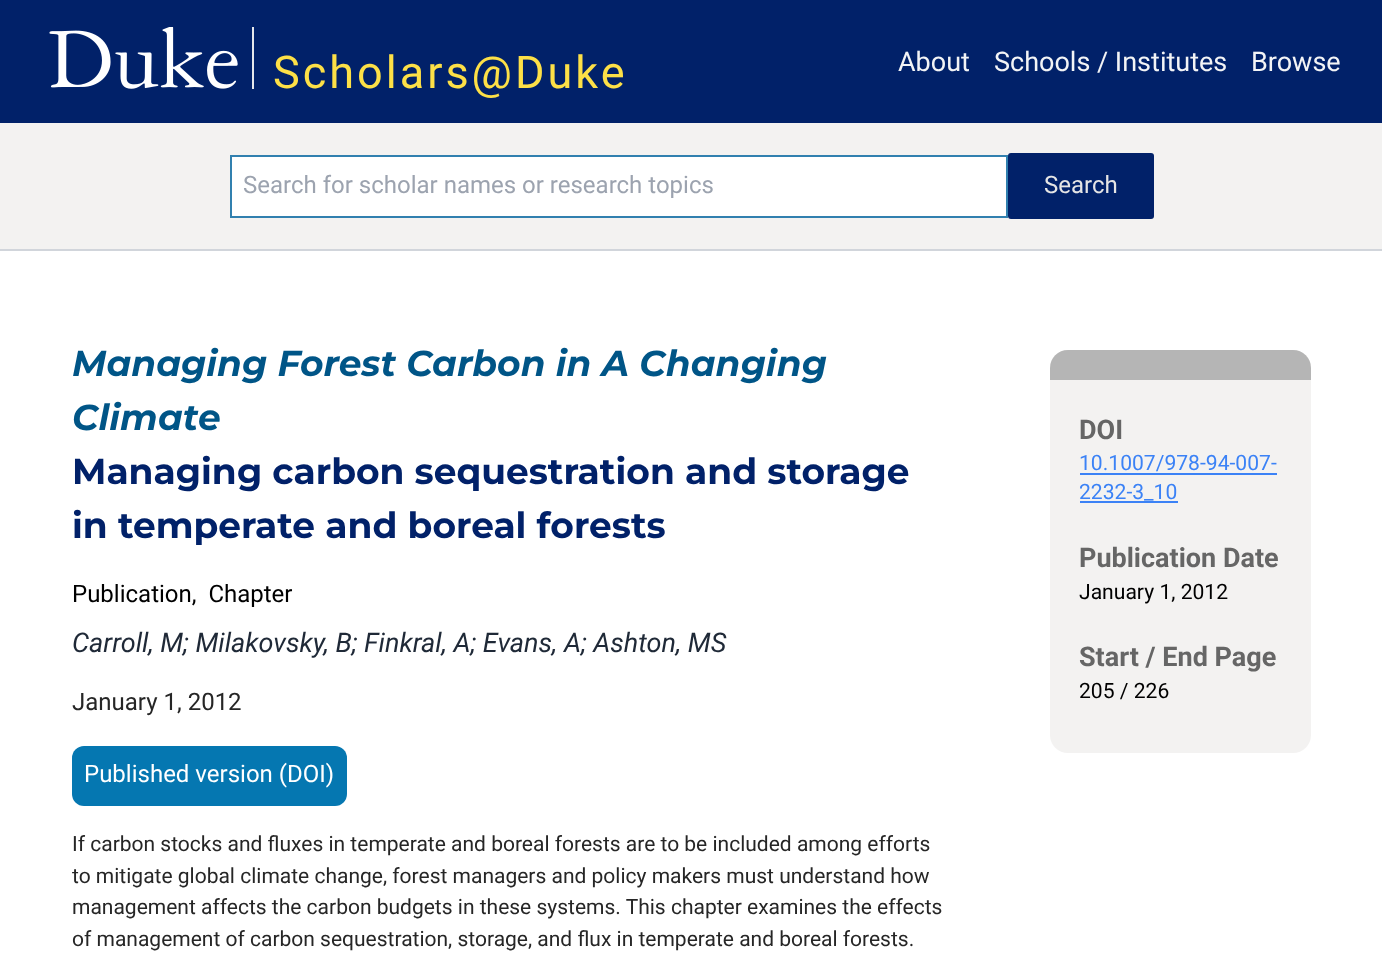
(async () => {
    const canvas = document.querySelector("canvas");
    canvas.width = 1382;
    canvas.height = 956;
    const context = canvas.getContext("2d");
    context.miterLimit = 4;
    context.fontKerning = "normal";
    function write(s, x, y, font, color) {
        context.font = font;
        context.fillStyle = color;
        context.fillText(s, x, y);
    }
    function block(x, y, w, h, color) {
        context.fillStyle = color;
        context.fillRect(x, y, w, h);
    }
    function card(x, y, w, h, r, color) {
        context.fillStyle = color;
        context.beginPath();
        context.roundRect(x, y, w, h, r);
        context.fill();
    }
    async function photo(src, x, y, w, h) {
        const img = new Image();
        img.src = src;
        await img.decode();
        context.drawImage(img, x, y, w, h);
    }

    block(0, 0, 1382, 956, "rgb(255, 255, 255)");
    block(0, 0, 1382, 123, "rgb(1, 33, 105)");
    await photo("media/1.png", 49, 27, 189, 62);
    block(252, 27, 2, 62, "rgb(229, 231, 235)");
    context.letterSpacing = "3px";
    write("Scholars@Duke", 273, 88, "45px Roboto", "rgb(253, 224, 71)");
    context.letterSpacing = "0px";
    write("About", 898, 71, "27px Roboto", "rgb(243, 244, 246)");
    write("Schools / Institutes", 994, 71, "27px Roboto", "rgb(243, 244, 246)");
    write("Browse", 1251, 71, "27px Roboto", "rgb(243, 244, 246)");
    block(0, 249, 1382, 2, "rgb(209, 213, 219)");
    block(0, 123, 1382, 126, "rgb(243, 242, 241)");
    context.fillStyle = "rgb(255, 255, 255)";
    context.beginPath();
    context.rect(231, 156, 776, 61);
    context.fill();
    context.strokeStyle = "rgb(49, 128, 175)";
    context.lineWidth = 2;
    context.stroke();
    write("Search for scholar names or research topics", 243, 193, "24px Roboto", "rgb(156, 163, 175)");
    card(1008, 153, 146, 66, 3, "rgb(1, 33, 105)");
    write("Search", 1044, 193, "24px Roboto", "rgb(229, 229, 229)");
    write("Managing Forest Carbon in A Changing", 72, 376, "italic bold 36px Montserrat", "rgb(0, 85, 135)");
    write("Climate", 72, 430, "italic bold 36px Montserrat", "rgb(0, 85, 135)");
    write("Managing carbon sequestration and storage", 72, 484, "bold 36px Montserrat", "rgb(1, 33, 105)");
    write("in temperate and boreal forests", 72, 538, "bold 36px Montserrat", "rgb(1, 33, 105)");
    write("Publication,  Chapter", 72, 602, "24px Roboto", "rgb(0, 0, 0)");
    write("Carroll, M; Milakovsky, B; Finkral, A; Evans, A; Ashton, MS", 72, 652, "italic 27px Roboto", "rgb(31, 41, 55)");
    write("January 1, 2012", 72, 710, "24px Roboto", "rgb(38, 38, 38)");
    card(72, 746, 275, 60, 12, "rgb(5, 119, 177)");
    write("Published version (DOI)", 84, 782, "24px Roboto", "rgb(255, 255, 255)");
    write("If carbon stocks and fluxes in temperate and boreal forests are to be included among efforts", 72, 851, "21px Roboto", "rgb(38, 38, 38)");
    write("to mitigate global climate change, forest managers and policy makers must understand how", 72, 883, "21px Roboto", "rgb(38, 38, 38)");
    write("management affects the carbon budgets in these systems. This chapter examines the effects", 72, 914, "21px Roboto", "rgb(38, 38, 38)");
    write("of management of carbon sequestration, storage, and flux in temperate and boreal forests.", 72, 946, "21px Roboto", "rgb(38, 38, 38)");
    card(1050, 350, 261, 403, 18, "rgb(243, 242, 241)");
    context.fillStyle = "rgb(181, 181, 181)";
    context.beginPath();
    context.roundRect(1050, 350, 261, 30, [18, 18, 0, 0]);
    context.fill();
    write("DOI", 1079, 439, "bold 27px Roboto", "rgb(102, 102, 102)");
    write("10.1007/978-94-007-", 1079, 470, "21.1px Roboto", "rgb(59, 130, 246)");
    block(1080, 473, 197, 2, "rgb(59, 130, 246)");
    write("2232-3_10", 1079, 499, "21.1px Roboto", "rgb(59, 130, 246)");
    block(1080, 501, 98, 2, "rgb(59, 130, 246)");
    write("Publication Date", 1079, 567, "bold 27px Roboto", "rgb(102, 102, 102)");
    write("January 1, 2012", 1079, 599, "21.1px Roboto", "rgb(0, 0, 0)");
    write("Start / End Page", 1079, 666, "bold 27px Roboto", "rgb(102, 102, 102)");
    write("205 / 226", 1079, 698, "21.1px Roboto", "rgb(0, 0, 0)");
})();
